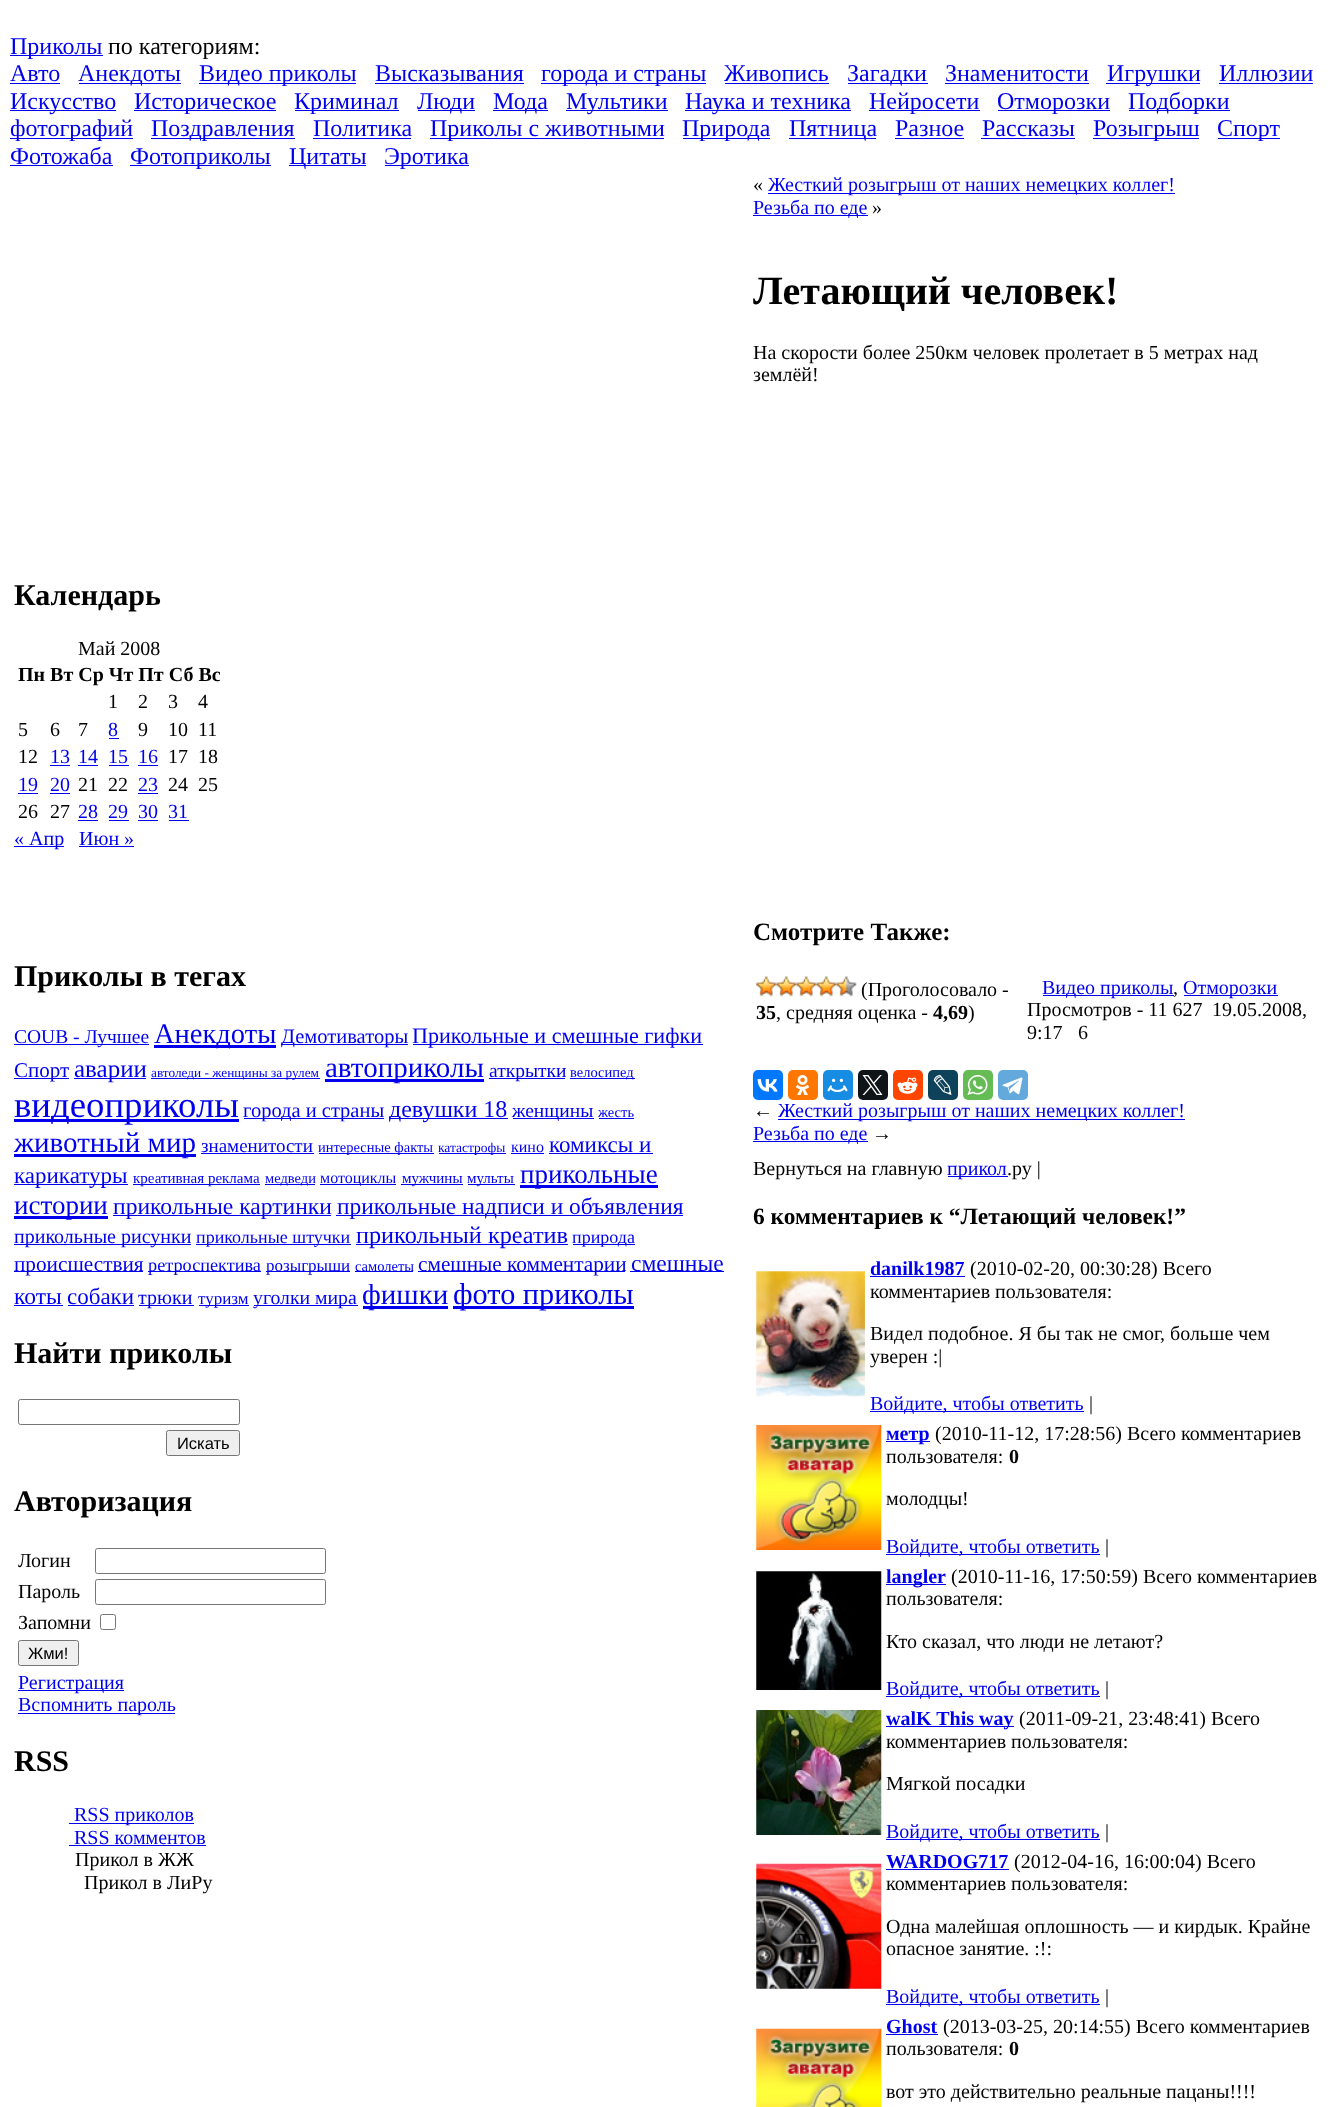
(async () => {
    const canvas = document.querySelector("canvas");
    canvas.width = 1340;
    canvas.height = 2107;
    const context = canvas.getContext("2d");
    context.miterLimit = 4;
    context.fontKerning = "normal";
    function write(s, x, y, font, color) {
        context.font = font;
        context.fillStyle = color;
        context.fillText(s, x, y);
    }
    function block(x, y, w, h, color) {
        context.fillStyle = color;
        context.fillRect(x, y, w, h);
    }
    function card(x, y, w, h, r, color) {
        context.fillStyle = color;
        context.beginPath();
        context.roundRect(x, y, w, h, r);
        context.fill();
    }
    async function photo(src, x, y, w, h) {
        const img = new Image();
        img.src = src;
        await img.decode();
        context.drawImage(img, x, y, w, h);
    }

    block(0, 0, 1340, 2107, "rgb(255, 255, 255)");
    block(10, 55, 93, 1, "rgb(0, 0, 238)");
    write("Приколы", 10, 54, "24px Liberation Serif", "rgb(0, 0, 238)");
    write("по категориям:", 108, 54, "24px Liberation Serif", "rgb(0, 0, 0)");
    write("Авто", 10, 81, "24px Liberation Serif", "rgb(0, 0, 238)");
    block(10, 83, 50, 1, "rgb(0, 0, 238)");
    block(79, 83, 102, 1, "rgb(0, 0, 238)");
    write("Анекдоты", 78, 81, "24px Liberation Serif", "rgb(0, 0, 238)");
    block(199, 83, 157, 1, "rgb(0, 0, 238)");
    write("Видео приколы", 199, 81, "24px Liberation Serif", "rgb(0, 0, 238)");
    write("Высказывания", 375, 81, "24px Liberation Serif", "rgb(0, 0, 238)");
    block(375, 83, 149, 1, "rgb(0, 0, 238)");
    block(541, 83, 165, 1, "rgb(0, 0, 238)");
    write("города и страны", 541, 81, "24px Liberation Serif", "rgb(0, 0, 238)");
    write("Живопись", 724, 81, "24px Liberation Serif", "rgb(0, 0, 238)");
    block(725, 83, 104, 1, "rgb(0, 0, 238)");
    block(848, 83, 80, 1, "rgb(0, 0, 238)");
    write("Загадки", 847, 81, "24px Liberation Serif", "rgb(0, 0, 238)");
    write("Знаменитости", 945, 81, "24px Liberation Serif", "rgb(0, 0, 238)");
    block(945, 83, 144, 1, "rgb(0, 0, 238)");
    block(1106, 83, 94, 1, "rgb(0, 0, 238)");
    write("Игрушки", 1107, 81, "24px Liberation Serif", "rgb(0, 0, 238)");
    write("Иллюзии", 1219, 81, "24px Liberation Serif", "rgb(0, 0, 238)");
    block(1219, 83, 94, 1, "rgb(0, 0, 238)");
    block(10, 110, 106, 1, "rgb(0, 0, 238)");
    write("Искусство", 10, 109, "24px Liberation Serif", "rgb(0, 0, 238)");
    block(134, 110, 142, 1, "rgb(0, 0, 238)");
    write("Историческое", 134, 109, "24px Liberation Serif", "rgb(0, 0, 238)");
    block(295, 110, 104, 1, "rgb(0, 0, 238)");
    write("Криминал", 294, 109, "24px Liberation Serif", "rgb(0, 0, 238)");
    block(418, 110, 57, 1, "rgb(0, 0, 238)");
    write("Люди", 417, 109, "24px Liberation Serif", "rgb(0, 0, 238)");
    block(493, 110, 55, 1, "rgb(0, 0, 238)");
    write("Мода", 493, 109, "24px Liberation Serif", "rgb(0, 0, 238)");
    block(566, 110, 102, 1, "rgb(0, 0, 238)");
    write("Мультики", 566, 109, "24px Liberation Serif", "rgb(0, 0, 238)");
    block(685, 110, 166, 1, "rgb(0, 0, 238)");
    write("Наука и техника", 685, 109, "24px Liberation Serif", "rgb(0, 0, 238)");
    block(869, 110, 111, 1, "rgb(0, 0, 238)");
    write("Нейросети", 869, 109, "24px Liberation Serif", "rgb(0, 0, 238)");
    block(998, 110, 112, 1, "rgb(0, 0, 238)");
    write("Отморозки", 997, 109, "24px Liberation Serif", "rgb(0, 0, 238)");
    block(1129, 110, 101, 1, "rgb(0, 0, 238)");
    write("Подборки", 1128, 109, "24px Liberation Serif", "rgb(0, 0, 238)");
    block(10, 138, 123, 1, "rgb(0, 0, 238)");
    write("фотографий", 10, 136, "24px Liberation Serif", "rgb(0, 0, 238)");
    block(151, 138, 144, 1, "rgb(0, 0, 238)");
    write("Поздравления", 151, 136, "24px Liberation Serif", "rgb(0, 0, 238)");
    write("Политика", 313, 136, "24px Liberation Serif", "rgb(0, 0, 238)");
    block(313, 138, 98, 1, "rgb(0, 0, 238)");
    block(430, 138, 234, 1, "rgb(0, 0, 238)");
    write("Приколы с животными", 430, 136, "24px Liberation Serif", "rgb(0, 0, 238)");
    block(683, 138, 87, 1, "rgb(0, 0, 238)");
    write("Природа", 682, 136, "24px Liberation Serif", "rgb(0, 0, 238)");
    block(789, 138, 87, 1, "rgb(0, 0, 238)");
    write("Пятница", 789, 136, "24px Liberation Serif", "rgb(0, 0, 238)");
    write("Разное", 895, 136, "24px Liberation Serif", "rgb(0, 0, 238)");
    block(895, 138, 69, 1, "rgb(0, 0, 238)");
    write("Рассказы", 982, 136, "24px Liberation Serif", "rgb(0, 0, 238)");
    block(981, 138, 94, 1, "rgb(0, 0, 238)");
    block(1093, 138, 106, 1, "rgb(0, 0, 238)");
    write("Розыгрыш", 1093, 136, "24px Liberation Serif", "rgb(0, 0, 238)");
    block(1218, 138, 62, 1, "rgb(0, 0, 238)");
    write("Спорт", 1217, 136, "24px Liberation Serif", "rgb(0, 0, 238)");
    write("Фотожаба", 10, 164, "24px Liberation Serif", "rgb(0, 0, 238)");
    block(10, 165, 103, 1, "rgb(0, 0, 238)");
    block(130, 165, 141, 1, "rgb(0, 0, 238)");
    write("Фотоприколы", 130, 164, "24px Liberation Serif", "rgb(0, 0, 238)");
    block(289, 165, 77, 1, "rgb(0, 0, 238)");
    write("Цитаты", 289, 164, "24px Liberation Serif", "rgb(0, 0, 238)");
    block(385, 165, 84, 1, "rgb(0, 0, 238)");
    write("Эротика", 384, 164, "24px Liberation Serif", "rgb(0, 0, 238)");
    write("Календарь", 14, 605, "bold 30px Liberation Serif", "rgb(0, 0, 0)");
    write("Май 2008", 78, 655, "20px Liberation Serif", "rgb(0, 0, 0)");
    write("Пн Вт Ср Чт Пт Сб Вс", 18, 681, "bold 20px Liberation Serif", "rgb(0, 0, 0)");
    write("1", 108, 708, "20px Liberation Serif", "rgb(0, 0, 0)");
    write("2", 138, 708, "20px Liberation Serif", "rgb(0, 0, 0)");
    write("3", 168, 708, "20px Liberation Serif", "rgb(0, 0, 0)");
    write("4", 198, 708, "20px Liberation Serif", "rgb(0, 0, 0)");
    write("5", 18, 736, "20px Liberation Serif", "rgb(0, 0, 0)");
    write("6", 50, 736, "20px Liberation Serif", "rgb(0, 0, 0)");
    write("7", 78, 736, "20px Liberation Serif", "rgb(0, 0, 0)");
    write("8", 108, 736, "20px Liberation Serif", "rgb(0, 0, 238)");
    block(109, 738, 10, 1, "rgb(0, 0, 238)");
    write("9", 138, 736, "20px Liberation Serif", "rgb(0, 0, 0)");
    write("10", 168, 736, "20px Liberation Serif", "rgb(0, 0, 0)");
    write("11", 198, 736, "20px Liberation Serif", "rgb(0, 0, 0)");
    write("12", 18, 763, "20px Liberation Serif", "rgb(0, 0, 0)");
    write("13", 50, 763, "20px Liberation Serif", "rgb(0, 0, 238)");
    block(50, 765, 20, 1, "rgb(0, 0, 238)");
    write("14", 78, 763, "20px Liberation Serif", "rgb(0, 0, 238)");
    block(78, 765, 20, 1, "rgb(0, 0, 238)");
    write("15", 108, 763, "20px Liberation Serif", "rgb(0, 0, 238)");
    block(109, 765, 20, 1, "rgb(0, 0, 238)");
    write("16", 138, 763, "20px Liberation Serif", "rgb(0, 0, 238)");
    block(138, 765, 20, 1, "rgb(0, 0, 238)");
    write("17", 168, 763, "20px Liberation Serif", "rgb(0, 0, 0)");
    write("18", 198, 763, "20px Liberation Serif", "rgb(0, 0, 0)");
    write("19", 18, 791, "20px Liberation Serif", "rgb(0, 0, 238)");
    block(18, 793, 20, 1, "rgb(0, 0, 238)");
    write("20", 50, 791, "20px Liberation Serif", "rgb(0, 0, 238)");
    block(50, 793, 20, 1, "rgb(0, 0, 238)");
    write("21", 78, 791, "20px Liberation Serif", "rgb(0, 0, 0)");
    write("22", 108, 791, "20px Liberation Serif", "rgb(0, 0, 0)");
    write("23", 138, 791, "20px Liberation Serif", "rgb(0, 0, 238)");
    block(138, 793, 20, 1, "rgb(0, 0, 238)");
    write("24", 168, 791, "20px Liberation Serif", "rgb(0, 0, 0)");
    write("25", 198, 791, "20px Liberation Serif", "rgb(0, 0, 0)");
    write("26", 18, 818, "20px Liberation Serif", "rgb(0, 0, 0)");
    write("27", 50, 818, "20px Liberation Serif", "rgb(0, 0, 0)");
    write("28", 78, 818, "20px Liberation Serif", "rgb(0, 0, 238)");
    block(78, 820, 20, 1, "rgb(0, 0, 238)");
    write("29", 108, 818, "20px Liberation Serif", "rgb(0, 0, 238)");
    block(109, 820, 20, 1, "rgb(0, 0, 238)");
    write("30", 138, 818, "20px Liberation Serif", "rgb(0, 0, 238)");
    block(138, 820, 20, 1, "rgb(0, 0, 238)");
    write("31", 168, 818, "20px Liberation Serif", "rgb(0, 0, 238)");
    block(169, 820, 20, 1, "rgb(0, 0, 238)");
    block(14, 846, 50, 1, "rgb(0, 0, 238)");
    write("« Апр", 14, 845, "20px Liberation Serif", "rgb(0, 0, 238)");
    write("Июн »", 79, 845, "20px Liberation Serif", "rgb(0, 0, 238)");
    block(79, 846, 55, 1, "rgb(0, 0, 238)");
    write("Приколы в тегах", 14, 986, "bold 30px Liberation Serif", "rgb(0, 0, 0)");
    block(14, 1044, 135, 1, "rgb(0, 0, 238)");
    write("COUB - Лучшее", 14, 1043, "19.5px Liberation Serif", "rgb(0, 0, 238)");
    block(154, 1045, 122, 3, "rgb(0, 0, 238)");
    write("Анекдоты", 154, 1043, "28.5px Liberation Serif", "rgb(0, 0, 238)");
    block(281, 1044, 127, 1, "rgb(0, 0, 238)");
    write("Демотиваторы", 281, 1043, "20.5px Liberation Serif", "rgb(0, 0, 238)");
    block(413, 1044, 290, 1, "rgb(0, 0, 238)");
    write("Прикольные и смешные гифки", 412, 1043, "22.1px Liberation Serif", "rgb(0, 0, 238)");
    block(14, 1078, 55, 1, "rgb(0, 0, 238)");
    write("Спорт", 14, 1077, "21px Liberation Serif", "rgb(0, 0, 238)");
    block(74, 1078, 72, 1, "rgb(0, 0, 238)");
    write("аварии", 74, 1077, "25px Liberation Serif", "rgb(0, 0, 238)");
    block(151, 1078, 169, 1, "rgb(0, 0, 238)");
    write("автоледи - женщины за рулем", 151, 1077, "13.3px Liberation Serif", "rgb(0, 0, 238)");
    block(325, 1079, 159, 3, "rgb(0, 0, 238)");
    write("автоприколы", 325, 1077, "29px Liberation Serif", "rgb(0, 0, 238)");
    block(489, 1078, 76, 1, "rgb(0, 0, 238)");
    write("аткрытки", 489, 1077, "19.5px Liberation Serif", "rgb(0, 0, 238)");
    block(570, 1078, 65, 1, "rgb(0, 0, 238)");
    write("велосипед", 570, 1077, "14.5px Liberation Serif", "rgb(0, 0, 238)");
    block(14, 1119, 225, 3, "rgb(0, 0, 238)");
    write("видеоприколы", 14, 1117, "36.75px Liberation Serif", "rgb(0, 0, 238)");
    block(244, 1118, 140, 1, "rgb(0, 0, 238)");
    write("города и страны", 243, 1117, "20.5px Liberation Serif", "rgb(0, 0, 238)");
    block(389, 1118, 119, 1, "rgb(0, 0, 238)");
    write("девушки 18", 389, 1117, "24px Liberation Serif", "rgb(0, 0, 238)");
    block(513, 1118, 81, 1, "rgb(0, 0, 238)");
    write("женщины", 512, 1117, "19.5px Liberation Serif", "rgb(0, 0, 238)");
    write("жесть", 598, 1117, "14.5px Liberation Serif", "rgb(0, 0, 238)");
    block(599, 1118, 35, 1, "rgb(0, 0, 238)");
    block(14, 1154, 182, 3, "rgb(0, 0, 238)");
    write("животный мир", 14, 1152, "29px Liberation Serif", "rgb(0, 0, 238)");
    write("знаменитости", 201, 1152, "19px Liberation Serif", "rgb(0, 0, 238)");
    block(201, 1153, 113, 1, "rgb(0, 0, 238)");
    block(319, 1153, 115, 1, "rgb(0, 0, 238)");
    write("интересные факты", 318, 1152, "14.5px Liberation Serif", "rgb(0, 0, 238)");
    block(439, 1153, 67, 1, "rgb(0, 0, 238)");
    write("катастрофы", 438, 1152, "13.5px Liberation Serif", "rgb(0, 0, 238)");
    write("кино", 511, 1152, "16px Liberation Serif", "rgb(0, 0, 238)");
    block(511, 1153, 33, 1, "rgb(0, 0, 238)");
    write("комиксы и", 549, 1152, "23px Liberation Serif", "rgb(0, 0, 238)");
    block(549, 1153, 104, 1, "rgb(0, 0, 238)");
    block(14, 1184, 114, 1, "rgb(0, 0, 238)");
    write("карикатуры", 14, 1183, "23px Liberation Serif", "rgb(0, 0, 238)");
    block(133, 1184, 127, 1, "rgb(0, 0, 238)");
    write("креативная реклама", 133, 1183, "15px Liberation Serif", "rgb(0, 0, 238)");
    block(265, 1184, 50, 1, "rgb(0, 0, 238)");
    write("медведи", 265, 1183, "14.5px Liberation Serif", "rgb(0, 0, 238)");
    block(320, 1184, 76, 1, "rgb(0, 0, 238)");
    write("мотоциклы", 320, 1183, "16px Liberation Serif", "rgb(0, 0, 238)");
    block(401, 1184, 62, 1, "rgb(0, 0, 238)");
    write("мужчины", 402, 1183, "15px Liberation Serif", "rgb(0, 0, 238)");
    block(468, 1184, 47, 1, "rgb(0, 0, 238)");
    write("мульты", 467, 1183, "15px Liberation Serif", "rgb(0, 0, 238)");
    block(520, 1185, 138, 3, "rgb(0, 0, 238)");
    write("прикольные", 520, 1183, "27px Liberation Serif", "rgb(0, 0, 238)");
    block(14, 1216, 94, 3, "rgb(0, 0, 238)");
    write("истории", 14, 1214, "27px Liberation Serif", "rgb(0, 0, 238)");
    block(113, 1215, 218, 1, "rgb(0, 0, 238)");
    write("прикольные картинки", 113, 1214, "23.6px Liberation Serif", "rgb(0, 0, 238)");
    block(336, 1215, 347, 1, "rgb(0, 0, 238)");
    write("прикольные надписи и объявления", 337, 1214, "23.4px Liberation Serif", "rgb(0, 0, 238)");
    block(14, 1244, 177, 1, "rgb(0, 0, 238)");
    write("прикольные рисунки", 14, 1243, "20px Liberation Serif", "rgb(0, 0, 238)");
    block(196, 1244, 155, 1, "rgb(0, 0, 238)");
    write("прикольные штучки", 196, 1243, "18px Liberation Serif", "rgb(0, 0, 238)");
    block(356, 1244, 212, 1, "rgb(0, 0, 238)");
    write("прикольный креатив", 356, 1243, "24.25px Liberation Serif", "rgb(0, 0, 238)");
    block(573, 1244, 62, 1, "rgb(0, 0, 238)");
    write("природа", 572, 1243, "18px Liberation Serif", "rgb(0, 0, 238)");
    block(14, 1271, 129, 1, "rgb(0, 0, 238)");
    write("происшествия", 14, 1271, "21.25px Liberation Serif", "rgb(0, 0, 238)");
    block(148, 1271, 113, 1, "rgb(0, 0, 238)");
    write("ретроспектива", 148, 1271, "18.25px Liberation Serif", "rgb(0, 0, 238)");
    block(266, 1271, 84, 1, "rgb(0, 0, 238)");
    write("розыгрыши", 266, 1271, "17px Liberation Serif", "rgb(0, 0, 238)");
    block(355, 1271, 58, 1, "rgb(0, 0, 238)");
    write("самолеты", 355, 1271, "14.5px Liberation Serif", "rgb(0, 0, 238)");
    block(418, 1271, 207, 1, "rgb(0, 0, 238)");
    write("смешные комментарии", 418, 1271, "21.25px Liberation Serif", "rgb(0, 0, 238)");
    block(630, 1271, 94, 1, "rgb(0, 0, 238)");
    write("смешные", 631, 1271, "23.5px Liberation Serif", "rgb(0, 0, 238)");
    write("коты", 14, 1304, "23.5px Liberation Serif", "rgb(0, 0, 238)");
    block(14, 1305, 49, 1, "rgb(0, 0, 238)");
    write("собаки", 67, 1304, "23px Liberation Serif", "rgb(0, 0, 238)");
    block(68, 1305, 66, 1, "rgb(0, 0, 238)");
    block(139, 1305, 55, 1, "rgb(0, 0, 238)");
    write("трюки", 138, 1304, "20px Liberation Serif", "rgb(0, 0, 238)");
    block(199, 1305, 50, 1, "rgb(0, 0, 238)");
    write("туризм", 198, 1304, "17px Liberation Serif", "rgb(0, 0, 238)");
    block(254, 1305, 104, 1, "rgb(0, 0, 238)");
    write("уголки мира", 253, 1304, "19.75px Liberation Serif", "rgb(0, 0, 238)");
    block(363, 1306, 85, 3, "rgb(0, 0, 238)");
    write("фишки", 362, 1304, "29px Liberation Serif", "rgb(0, 0, 238)");
    block(453, 1306, 181, 3, "rgb(0, 0, 238)");
    write("фото приколы", 453, 1304, "30.25px Liberation Serif", "rgb(0, 0, 238)");
    write("Найти приколы", 14, 1363, "bold 30px Liberation Serif", "rgb(0, 0, 0)");
    context.beginPath();
    context.roundRect(18.5, 1399.5, 221, 25, 2);
    context.strokeStyle = "rgb(118, 118, 118)";
    context.stroke();
    context.fillStyle = "rgb(239, 239, 239)";
    context.beginPath();
    context.roundRect(166.5, 1430.5, 73, 25, 2);
    context.fill();
    context.stroke();
    write("Искать", 177, 1449, "16.5px Liberation Sans", "rgb(0, 0, 0)");
    write("Авторизация", 14, 1511, "bold 30px Liberation Serif", "rgb(0, 0, 0)");
    write("Логин", 18, 1567, "20px Liberation Serif", "rgb(0, 0, 0)");
    context.beginPath();
    context.roundRect(95.5, 1548.5, 230, 25, 2);
    context.stroke();
    write("Пароль", 18, 1598, "20px Liberation Serif", "rgb(0, 0, 0)");
    context.beginPath();
    context.roundRect(95.5, 1579.5, 230, 25, 2);
    context.stroke();
    write("Запомни", 18, 1629, "20px Liberation Serif", "rgb(0, 0, 0)");
    context.beginPath();
    context.roundRect(100.5, 1614.5, 15, 15, 2);
    context.stroke();
    context.fillStyle = "rgb(239, 239, 239)";
    context.beginPath();
    context.roundRect(18.5, 1640.5, 60, 25, 2);
    context.fill();
    context.stroke();
    write("Жми!", 28, 1659, "16.5px Liberation Sans", "rgb(0, 0, 0)");
    block(18, 1690, 106, 1, "rgb(0, 0, 238)");
    write("Регистрация", 18, 1689, "20px Liberation Serif", "rgb(0, 0, 238)");
    block(18, 1713, 157, 1, "rgb(0, 0, 238)");
    write("Вспомнить пароль", 18, 1711, "20px Liberation Serif", "rgb(0, 0, 238)");
    write("RSS", 14, 1771, "bold 30px Liberation Serif", "rgb(0, 0, 0)");
    block(69, 1823, 125, 1, "rgb(0, 0, 238)");
    write("RSS приколов", 74, 1821, "20px Liberation Serif", "rgb(0, 0, 238)");
    write("RSS комментов", 74, 1844, "20px Liberation Serif", "rgb(0, 0, 238)");
    block(69, 1845, 137, 1, "rgb(0, 0, 238)");
    write("Прикол в ЖЖ", 75, 1866, "20px Liberation Serif", "rgb(0, 0, 0)");
    write("Прикол в ЛиРу", 84, 1889, "20px Liberation Serif", "rgb(0, 0, 0)");
    write("«", 753, 191, "20px Liberation Serif", "rgb(0, 0, 0)");
    block(768, 193, 407, 1, "rgb(0, 0, 238)");
    write("Жесткий розыгрыш от наших немецких коллег!", 768, 191, "20px Liberation Serif", "rgb(0, 0, 238)");
    block(753, 215, 115, 1, "rgb(0, 0, 238)");
    write("Резьба по еде", 753, 214, "20px Liberation Serif", "rgb(0, 0, 238)");
    write("»", 872, 214, "20px Liberation Serif", "rgb(0, 0, 0)");
    write("Летающий человек!", 753, 304, "bold 40px Liberation Serif", "rgb(0, 0, 0)");
    write("На скорости более 250км человек пролетает в 5 метрах над", 753, 359, "20px Liberation Serif", "rgb(0, 0, 0)");
    write("землёй!", 753, 381, "20px Liberation Serif", "rgb(0, 0, 0)");
    write("Смотрите Также:", 753, 940, "bold 25px Liberation Serif", "rgb(0, 0, 0)");
    await photo("media/1.png", 756, 976, 21, 21);
    await photo("media/2.png", 776, 976, 21, 21);
    await photo("media/2.png", 796, 976, 21, 21);
    await photo("media/2.png", 816, 976, 21, 21);
    await photo("media/3.png", 836, 976, 21, 21);
    write("(Проголосовало -", 861, 996, "20px Liberation Serif", "rgb(0, 0, 0)");
    write("35", 756, 1019, "bold 20px Liberation Serif", "rgb(0, 0, 0)");
    write(", средняя оценка -", 776, 1019, "20px Liberation Serif", "rgb(0, 0, 0)");
    write("4,69", 933, 1019, "bold 20px Liberation Serif", "rgb(0, 0, 0)");
    write(")", 968, 1019, "20px Liberation Serif", "rgb(0, 0, 0)");
    block(1043, 995, 131, 1, "rgb(0, 0, 238)");
    write("Видео приколы", 1042, 994, "20px Liberation Serif", "rgb(0, 0, 238)");
    write(",", 1173, 994, "20px Liberation Serif", "rgb(0, 0, 0)");
    block(1184, 995, 94, 1, "rgb(0, 0, 238)");
    write("Отморозки", 1183, 994, "20px Liberation Serif", "rgb(0, 0, 238)");
    write("Просмотров - 11 627", 1027, 1016, "20px Liberation Serif", "rgb(0, 0, 0)");
    write("19.05.2008,", 1212, 1016, "20px Liberation Serif", "rgb(0, 0, 0)");
    write("9:17", 1027, 1039, "20px Liberation Serif", "rgb(0, 0, 0)");
    write("6", 1078, 1039, "20px Liberation Serif", "rgb(0, 0, 0)");
    card(753, 1070, 30, 30, 5, "rgb(0, 119, 255)");
    await photo("media/4.png", 757, 1079, 21, 13);
    card(788, 1070, 30, 30, 5, "rgb(255, 119, 0)");
    await photo("media/5.png", 795, 1075, 15, 20);
    card(823, 1070, 30, 30, 5, "rgb(22, 141, 226)");
    await photo("media/6.png", 827, 1078, 21, 15);
    card(858, 1070, 30, 30, 5, "rgb(15, 20, 25)");
    await photo("media/7.png", 862, 1075, 21, 20);
    card(893, 1070, 30, 30, 5, "rgb(255, 69, 0)");
    await photo("media/8.png", 897, 1077, 21, 17);
    card(928, 1070, 30, 30, 5, "rgb(13, 66, 90)");
    await photo("media/9.png", 933, 1075, 19, 20);
    card(963, 1070, 30, 30, 5, "rgb(101, 188, 84)");
    await photo("media/10.png", 967, 1075, 21, 20);
    card(998, 1070, 30, 30, 5, "rgb(100, 169, 220)");
    await photo("media/11.png", 1002, 1077, 21, 18);
    write("←", 753, 1117, "20px Liberation Serif", "rgb(0, 0, 0)");
    block(778, 1119, 407, 1, "rgb(0, 0, 238)");
    write("Жесткий розыгрыш от наших немецких коллег!", 778, 1117, "20px Liberation Serif", "rgb(0, 0, 238)");
    block(753, 1141, 115, 1, "rgb(0, 0, 238)");
    write("Резьба по еде", 753, 1140, "20px Liberation Serif", "rgb(0, 0, 238)");
    write("→", 872, 1140, "20px Liberation Serif", "rgb(0, 0, 0)");
    write("Вернуться на главную", 753, 1175, "20px Liberation Serif", "rgb(0, 0, 0)");
    block(948, 1176, 60, 1, "rgb(0, 0, 238)");
    write("прикол", 947, 1175, "20px Liberation Serif", "rgb(0, 0, 238)");
    write(".ру |", 1007, 1175, "20px Liberation Serif", "rgb(0, 0, 0)");
    write("6 комментариев к “Летающий человек!”", 753, 1224, "bold 23.4px Liberation Serif", "rgb(0, 0, 0)");
    await photo("media/12.png", 756, 1271, 109, 126);
    write("danilk1987", 870, 1275, "bold 20px Liberation Serif", "rgb(0, 0, 238)");
    block(870, 1276, 95, 1, "rgb(0, 0, 238)");
    write("(2010-02-20, 00:30:28) Всего", 970, 1275, "20px Liberation Serif", "rgb(0, 0, 0)");
    write("комментариев пользователя:", 870, 1298, "20px Liberation Serif", "rgb(0, 0, 0)");
    write("Видел подобное. Я бы так не смог, больше чем", 870, 1340, "20px Liberation Serif", "rgb(0, 0, 0)");
    write("уверен :|", 870, 1363, "20px Liberation Serif", "rgb(0, 0, 0)");
    block(870, 1411, 214, 1, "rgb(0, 0, 238)");
    write("Войдите, чтобы ответить", 870, 1410, "20px Liberation Serif", "rgb(0, 0, 238)");
    write("|", 1089, 1410, "20px Liberation Serif", "rgb(0, 0, 0)");
    await photo("media/13.png", 756, 1425, 126, 125);
    block(886, 1441, 44, 1, "rgb(0, 0, 238)");
    write("метр", 886, 1440, "bold 20px Liberation Serif", "rgb(0, 0, 238)");
    write("(2010-11-12, 17:28:56) Всего комментариев", 935, 1440, "20px Liberation Serif", "rgb(0, 0, 0)");
    write("пользователя:", 886, 1463, "20px Liberation Serif", "rgb(0, 0, 0)");
    write("0", 1009, 1463, "bold 20px Liberation Serif", "rgb(0, 0, 0)");
    write("молодцы!", 886, 1505, "20px Liberation Serif", "rgb(0, 0, 0)");
    block(886, 1554, 214, 1, "rgb(0, 0, 238)");
    write("Войдите, чтобы ответить", 886, 1553, "20px Liberation Serif", "rgb(0, 0, 238)");
    write("|", 1105, 1553, "20px Liberation Serif", "rgb(0, 0, 0)");
    await photo("media/14.png", 756, 1571, 126, 119);
    block(886, 1584, 60, 1, "rgb(0, 0, 238)");
    write("langler", 886, 1583, "bold 20px Liberation Serif", "rgb(0, 0, 238)");
    write("(2010-11-16, 17:50:59) Всего комментариев", 951, 1583, "20px Liberation Serif", "rgb(0, 0, 0)");
    write("пользователя:", 886, 1605, "20px Liberation Serif", "rgb(0, 0, 0)");
    write("Кто сказал, что люди не летают?", 886, 1648, "20px Liberation Serif", "rgb(0, 0, 0)");
    block(886, 1696, 214, 1, "rgb(0, 0, 238)");
    write("Войдите, чтобы ответить", 886, 1695, "20px Liberation Serif", "rgb(0, 0, 238)");
    write("|", 1105, 1695, "20px Liberation Serif", "rgb(0, 0, 0)");
    await photo("media/15.png", 756, 1710, 126, 125);
    block(886, 1726, 128, 1, "rgb(0, 0, 238)");
    write("walK This way", 886, 1725, "bold 20px Liberation Serif", "rgb(0, 0, 238)");
    write("(2011-09-21, 23:48:41) Всего", 1019, 1725, "20px Liberation Serif", "rgb(0, 0, 0)");
    write("комментариев пользователя:", 886, 1748, "20px Liberation Serif", "rgb(0, 0, 0)");
    write("Мягкой посадки", 886, 1790, "20px Liberation Serif", "rgb(0, 0, 0)");
    block(886, 1839, 214, 1, "rgb(0, 0, 238)");
    write("Войдите, чтобы ответить", 886, 1838, "20px Liberation Serif", "rgb(0, 0, 238)");
    write("|", 1105, 1838, "20px Liberation Serif", "rgb(0, 0, 0)");
    await photo("media/16.png", 756, 1863, 126, 126);
    write("WARDOG717", 886, 1868, "bold 20px Liberation Serif", "rgb(0, 0, 238)");
    block(886, 1869, 123, 1, "rgb(0, 0, 238)");
    write("(2012-04-16, 16:00:04) Всего", 1014, 1868, "20px Liberation Serif", "rgb(0, 0, 0)");
    write("комментариев пользователя:", 886, 1890, "20px Liberation Serif", "rgb(0, 0, 0)");
    write("Одна малейшая оплошность — и кирдык. Крайне", 886, 1933, "20px Liberation Serif", "rgb(0, 0, 0)");
    write("опасное занятие. :!:", 886, 1955, "20px Liberation Serif", "rgb(0, 0, 0)");
    block(886, 2004, 214, 1, "rgb(0, 0, 238)");
    write("Войдите, чтобы ответить", 886, 2003, "20px Liberation Serif", "rgb(0, 0, 238)");
    write("|", 1105, 2003, "20px Liberation Serif", "rgb(0, 0, 0)");
    await photo("media/17.png", 756, 2028, 126, 79);
    write("Ghost", 886, 2033, "bold 20px Liberation Serif", "rgb(0, 0, 238)");
    block(886, 2034, 52, 1, "rgb(0, 0, 238)");
    write("(2013-03-25, 20:14:55) Всего комментариев", 943, 2033, "20px Liberation Serif", "rgb(0, 0, 0)");
    write("пользователя:", 886, 2055, "20px Liberation Serif", "rgb(0, 0, 0)");
    write("0", 1009, 2055, "bold 20px Liberation Serif", "rgb(0, 0, 0)");
    write("вот это действительно реальные пацаны!!!!", 886, 2098, "20px Liberation Serif", "rgb(0, 0, 0)");
})();
